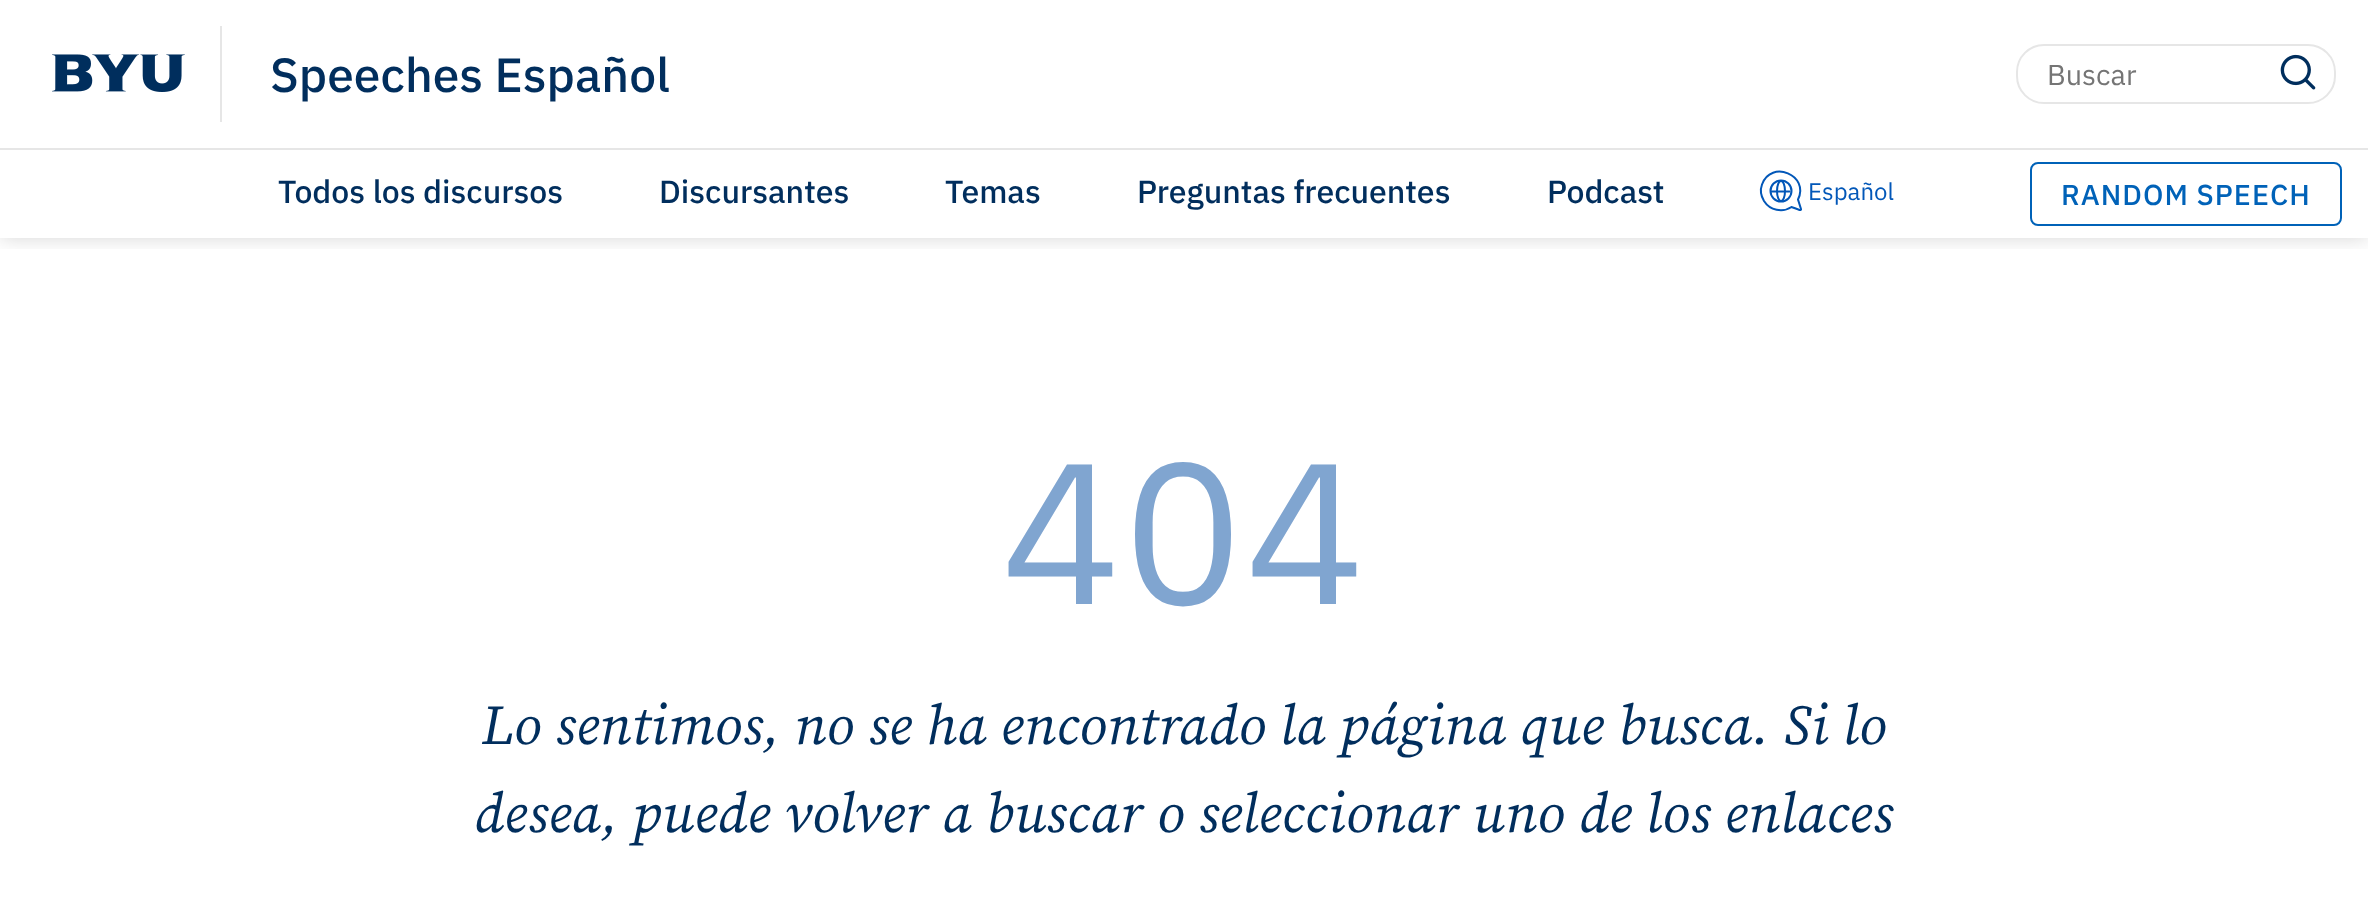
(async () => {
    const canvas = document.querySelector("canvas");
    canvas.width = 2368;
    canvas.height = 904;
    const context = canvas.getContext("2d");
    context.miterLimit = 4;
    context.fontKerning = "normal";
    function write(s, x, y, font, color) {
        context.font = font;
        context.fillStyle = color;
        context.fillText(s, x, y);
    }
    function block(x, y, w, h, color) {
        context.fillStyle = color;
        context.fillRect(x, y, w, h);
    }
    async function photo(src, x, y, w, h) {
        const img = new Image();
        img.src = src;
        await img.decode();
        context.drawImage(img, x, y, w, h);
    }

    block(0, 0, 2368, 904, "rgb(255, 255, 255)");
    context.save();
    context.beginPath();
    context.rect(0, 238, 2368, 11);
    context.clip();
    context.fillStyle = "rgba(0, 0, 0, 0.16)";
    context.filter = "blur(10px)";
    context.beginPath();
    context.rect(0, 0, 2368, 238);
    context.fill();
    context.filter = "none";
    context.restore();
    block(0, 148, 2368, 2, "rgb(230, 230, 230)");
    await photo("media/1.png", 52, 54, 133, 38);
    block(220, 26, 2, 96, "rgb(230, 230, 230)");
    write("Speeches Español", 270, 92, "500 48px IBM Plex Sans", "rgb(1, 46, 93)");
    context.beginPath();
    context.roundRect(2017, 45, 318, 58, 27);
    context.strokeStyle = "rgb(230, 230, 230)";
    context.lineWidth = 2;
    context.stroke();
    write("Buscar", 2047, 85, "28.75px IBM Plex Sans", "rgb(117, 117, 117)");
    await photo("media/2.png", 2280, 54, 36, 36);
    write("Todos los discursos", 278, 203, "500 32px IBM Plex Sans", "rgb(1, 46, 93)");
    write("Discursantes", 659, 203, "500 32px IBM Plex Sans", "rgb(1, 46, 93)");
    write("Temas", 945, 203, "500 32px IBM Plex Sans", "rgb(1, 46, 93)");
    write("Preguntas frecuentes", 1137, 203, "500 32px IBM Plex Sans", "rgb(1, 46, 93)");
    write("Podcast", 1547, 203, "500 32px IBM Plex Sans", "rgb(1, 46, 93)");
    context.beginPath();
    context.moveTo(1801, 209);
    context.lineTo(1798, 199.5);
    context.bezierCurveTo(1810, 175.5, 1771, 159, 1762, 184.5);
    context.bezierCurveTo(1760, 190, 1761, 196, 1764, 201);
    context.bezierCurveTo(1770, 210.5, 1782.5, 213, 1791.5, 207);
    context.bezierCurveTo(1794, 207.5, 1802, 212, 1801, 209);
    context.closePath();
    context.strokeStyle = "rgb(2, 87, 184)";
    context.stroke();
    context.beginPath();
    context.arc(1781, 191, 10.5, 0, Math.PI * 2);
    context.stroke();
    context.beginPath();
    context.moveTo(1771, 191.5);
    context.lineTo(1789.5, 191.5);
    context.lineCap = "round";
    context.stroke();
    context.beginPath();
    context.ellipse(1781, 191, 4, 10, 0, 0, Math.PI * 2);
    context.stroke();
    write("Español", 1808, 200, "24px IBM Plex Sans", "rgb(2, 87, 184)");
    context.beginPath();
    context.roundRect(2031, 163, 310, 62, 7);
    context.strokeStyle = "rgb(0, 98, 184)";
    context.stroke();
    context.letterSpacing = "1px";
    write("RANDOM SPEECH", 2061, 205, "500 28.75px IBM Plex Sans", "rgb(0, 98, 184)");
    context.letterSpacing = "2px";
    write("404", 1001, 604, "200px IBM Plex Sans", "rgb(128, 165, 208)");
    context.letterSpacing = "0.62px";
    write("Lo sentimos, no se ha encontrado la página que busca. Si lo", 481, 744, "italic 56px Source Serif Pro", "rgb(1, 46, 93)");
    write("desea, puede volver a buscar o seleccionar uno de los enlaces", 474, 832, "italic 56px Source Serif Pro", "rgb(1, 46, 93)");
})();
